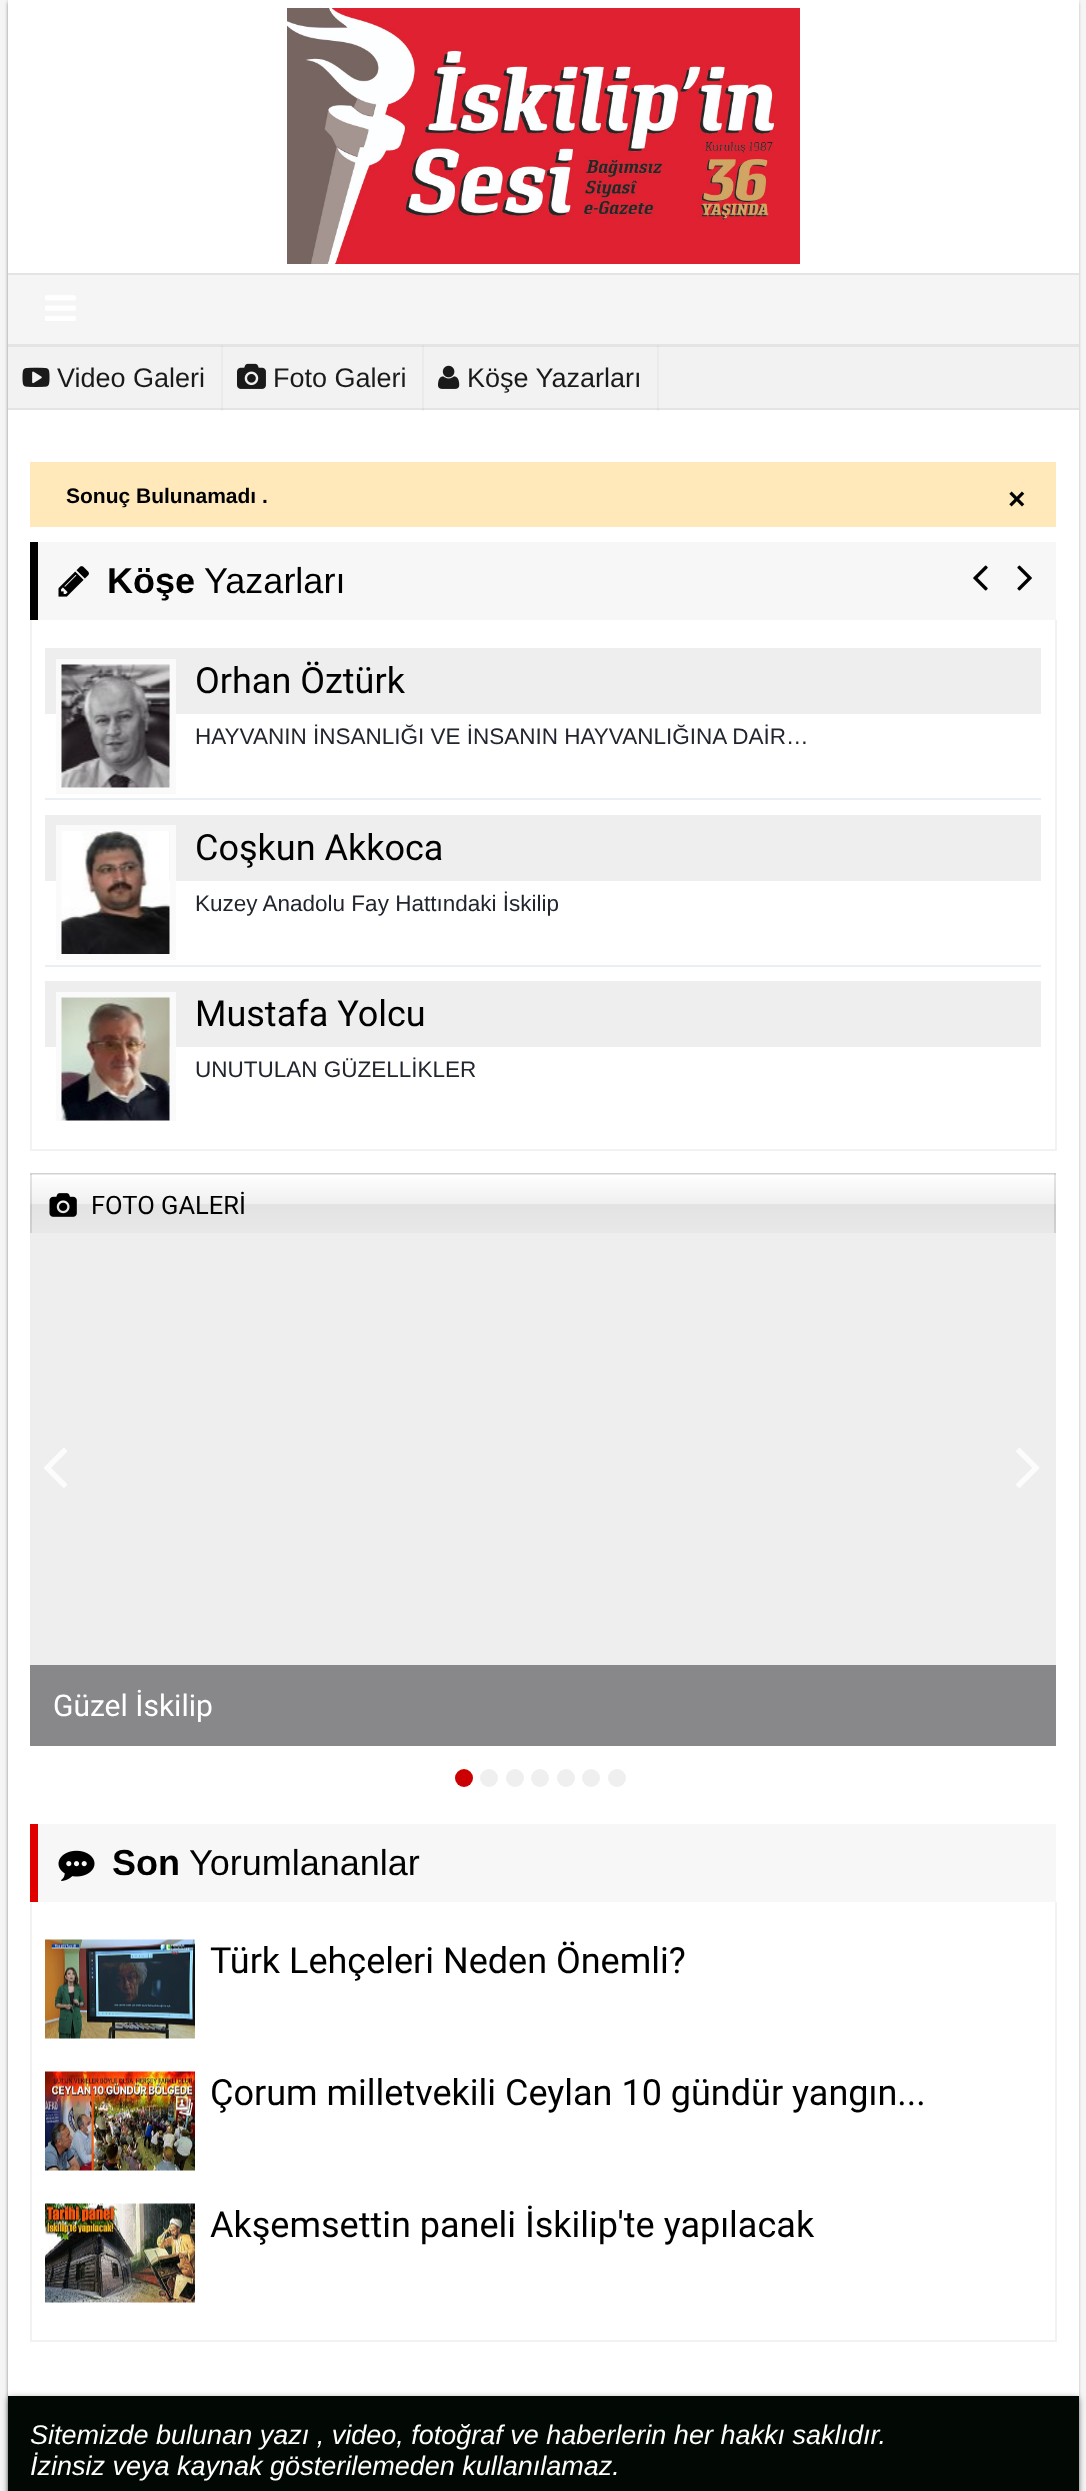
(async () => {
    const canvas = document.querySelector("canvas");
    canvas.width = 1086;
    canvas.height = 2491;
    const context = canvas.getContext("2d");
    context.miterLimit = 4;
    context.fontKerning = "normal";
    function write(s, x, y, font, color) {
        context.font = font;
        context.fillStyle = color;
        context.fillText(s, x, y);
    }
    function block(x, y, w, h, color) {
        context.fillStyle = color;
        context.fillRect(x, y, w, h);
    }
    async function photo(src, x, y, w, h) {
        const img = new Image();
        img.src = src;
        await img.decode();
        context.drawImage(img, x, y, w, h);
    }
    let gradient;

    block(0, 0, 1086, 2491, "rgb(245, 245, 245)");
    context.fillStyle = "rgba(0, 0, 0, 0.7)";
    context.filter = "blur(2px)";
    context.beginPath();
    context.rect(9, 2, 1068, 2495);
    context.fill();
    context.filter = "none";
    block(8, 0, 1071, 2396, "rgb(255, 255, 255)");
    block(657, 410, 2, 1, "rgb(247, 247, 247)");
    block(422, 410, 2, 1, "rgb(247, 247, 247)");
    block(221, 410, 2, 1, "rgb(247, 247, 247)");
    await photo("media/1.png", 287, 8, 513, 256);
    block(8, 275, 1071, 69, "rgb(245, 245, 245)");
    block(8, 273, 1071, 2, "rgb(228, 228, 228)");
    await photo("media/2.png", 45, 295, 31, 26);
    block(8, 347, 1071, 61, "rgb(242, 242, 242)");
    block(657, 345, 2, 65, "rgb(235, 235, 235)");
    block(422, 345, 2, 65, "rgb(235, 235, 235)");
    block(221, 345, 2, 65, "rgb(235, 235, 235)");
    block(8, 344, 1071, 3, "rgb(228, 228, 228)");
    block(657, 345, 2, 2, "rgb(221, 221, 221)");
    block(422, 345, 2, 2, "rgb(221, 221, 221)");
    block(221, 345, 2, 2, "rgb(221, 221, 221)");
    block(8, 408, 1071, 2, "rgb(228, 228, 228)");
    block(657, 408, 2, 2, "rgb(221, 221, 221)");
    block(422, 408, 2, 2, "rgb(221, 221, 221)");
    block(221, 408, 2, 2, "rgb(221, 221, 221)");
    await photo("media/3.png", 22, 367, 28, 20);
    write("Video Galeri", 57, 387, "27px Liberation Sans", "rgb(26, 26, 26)");
    await photo("media/4.png", 237, 363, 29, 26);
    write("Foto Galeri", 273, 387, "27px Liberation Sans", "rgb(26, 26, 26)");
    await photo("media/5.png", 438, 365, 22, 24);
    write("Köşe Yazarları", 467, 387, "27px Liberation Sans", "rgb(26, 26, 26)");
    block(30, 462, 1026, 65, "rgb(255, 232, 186)");
    write("Sonuç Bulunamadı .", 66, 503, "bold 21px Liberation Sans", "rgb(0, 0, 0)");
    write("×", 1008, 509, "bold 30px Liberation Sans", "rgb(0, 0, 0)");
    block(38, 542, 1018, 78, "rgb(247, 247, 247)");
    block(30, 542, 8, 78, "rgb(3, 1, 0)");
    await photo("media/6.png", 58, 566, 31, 31);
    write("Köşe", 107, 593, "bold 36px Liberation Sans", "rgb(0, 0, 0)");
    write("Yazarları", 204, 593, "36px Liberation Sans", "rgb(0, 0, 0)");
    await photo("media/7.png", 973, 565, 15, 26);
    await photo("media/8.png", 1017, 565, 15, 26);
    block(1055, 620, 2, 531, "rgb(242, 242, 242)");
    block(30, 1149, 1026, 2, "rgb(242, 242, 242)");
    block(30, 620, 2, 531, "rgb(242, 242, 242)");
    block(45, 798, 996, 2, "rgb(234, 239, 244)");
    block(45, 648, 996, 66, "rgb(238, 238, 238)");
    context.strokeStyle = "rgb(250, 250, 250)";
    context.lineWidth = 6;
    context.strokeRect(59, 662, 114, 129);
    await photo("media/9.png", 61, 664, 109, 124);
    write("Orhan Öztürk", 195, 693, "36px Roboto", "rgb(0, 0, 0)");
    write("HAYVANIN İNSANLIĞI VE İNSANIN HAYVANLIĞINA DAİR…", 195, 744, "22.5px Liberation Sans", "rgb(33, 37, 46)");
    block(45, 965, 996, 2, "rgb(234, 239, 244)");
    block(45, 815, 996, 66, "rgb(238, 238, 238)");
    context.strokeRect(59, 828, 114, 129);
    await photo("media/10.png", 61, 831, 109, 123);
    write("Coşkun Akkoca", 195, 860, "36px Roboto", "rgb(0, 0, 0)");
    write("Kuzey Anadolu Fay Hattındaki İskilip", 195, 911, "22.5px Liberation Sans", "rgb(33, 37, 46)");
    block(45, 981, 996, 66, "rgb(238, 238, 238)");
    context.save();
    context.beginPath();
    context.rect(45, 648, 996, 473);
    context.clip();
    context.strokeRect(59, 995, 114, 129);
    context.restore();
    await photo("media/11.png", 61, 997, 109, 124);
    write("Mustafa Yolcu", 195, 1026, "36px Roboto", "rgb(0, 0, 0)");
    write("UNUTULAN GÜZELLİKLER", 195, 1077, "22.5px Liberation Sans", "rgb(33, 37, 46)");
    gradient = context.createLinearGradient(543, 1116, 543, 1175);
    gradient.addColorStop(0, "rgb(254, 254, 254)");
    gradient.addColorStop(0.5, "rgb(240, 240, 240)");
    gradient.addColorStop(0.51, "rgb(227, 227, 227)");
    gradient.addColorStop(1, "rgb(232, 232, 232)");
    context.fillStyle = gradient;
    context.fillRect(30, 1173, 1026, 2);
    gradient = context.createLinearGradient(543, 1175, 543, 1233);
    gradient.addColorStop(0, "rgb(254, 254, 254)");
    gradient.addColorStop(0.5, "rgb(240, 240, 240)");
    gradient.addColorStop(0.51, "rgb(227, 227, 227)");
    gradient.addColorStop(1, "rgb(232, 232, 232)");
    context.fillStyle = gradient;
    context.fillRect(30, 1178, 1026, 55);
    context.fillStyle = "rgb(209, 209, 209)";
    context.beginPath();
    context.moveTo(30, 1173);
    context.lineTo(1056, 1173);
    context.lineTo(1054, 1174);
    context.lineTo(32, 1174);
    context.closePath();
    context.fill();
    context.fillStyle = "rgba(0, 0, 0, 0.1)";
    context.beginPath();
    context.moveTo(1056, 1173);
    context.lineTo(1056, 1233);
    context.lineTo(1054, 1233);
    context.lineTo(1054, 1174);
    context.closePath();
    context.fill();
    context.beginPath();
    context.moveTo(30, 1233);
    context.lineTo(30, 1173);
    context.lineTo(32, 1174);
    context.lineTo(32, 1233);
    context.closePath();
    context.fill();
    await photo("media/12.png", 49, 1193, 28, 24);
    write("FOTO GALERİ", 91, 1214, "25.5px Roboto", "rgb(0, 0, 0)");
    block(30, 1233, 1026, 432, "rgb(238, 238, 238)");
    await photo("media/13.png", 44, 1448, 23, 40);
    await photo("media/14.png", 1016, 1448, 24, 40);
    block(30, 1665, 1026, 81, "rgb(136, 136, 138)");
    write("Güzel İskilip", 53, 1716, "30px Roboto", "rgb(255, 255, 255)");
    context.fillStyle = "rgb(204, 0, 0)";
    context.beginPath();
    context.arc(464, 1778, 9, 0, Math.PI * 2);
    context.fill();
    context.fillStyle = "rgb(239, 239, 239)";
    context.beginPath();
    context.arc(489, 1778, 9, 0, Math.PI * 2);
    context.fill();
    context.beginPath();
    context.arc(515, 1778, 9, 0, Math.PI * 2);
    context.fill();
    context.beginPath();
    context.arc(540, 1778, 9, 0, Math.PI * 2);
    context.fill();
    context.beginPath();
    context.arc(566, 1778, 9, 0, Math.PI * 2);
    context.fill();
    context.beginPath();
    context.arc(591, 1778, 9, 0, Math.PI * 2);
    context.fill();
    context.beginPath();
    context.arc(617, 1778, 9, 0, Math.PI * 2);
    context.fill();
    block(38, 1824, 1018, 78, "rgb(247, 247, 247)");
    block(30, 1824, 8, 78, "rgb(224, 0, 0)");
    await photo("media/15.png", 58, 1850, 37, 31);
    write("Son", 112, 1875, "bold 36px Liberation Sans", "rgb(0, 0, 0)");
    write("Yorumlananlar", 189, 1875, "36px Liberation Sans", "rgb(0, 0, 0)");
    block(1055, 1902, 2, 440, "rgb(242, 242, 242)");
    block(30, 2340, 1026, 2, "rgb(242, 242, 242)");
    block(30, 1902, 2, 440, "rgb(242, 242, 242)");
    await photo("media/16.png", 45, 1939, 150, 100);
    write("Türk Lehçeleri Neden Önemli?", 210, 1973, "36px Roboto", "rgb(0, 0, 0)");
    await photo("media/17.png", 45, 2071, 150, 100);
    write("Çorum milletvekili Ceylan 10 gündür yangın...", 210, 2105, "36px Roboto", "rgb(0, 0, 0)");
    await photo("media/18.png", 45, 2203, 150, 100);
    write("Akşemsettin paneli İskilip'te yapılacak", 210, 2237, "36px Roboto", "rgb(0, 0, 0)");
    context.fillStyle = "rgba(0, 0, 0, 0.28)";
    context.filter = "blur(3px)";
    context.beginPath();
    context.rect(8, 2399, 1071, 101);
    context.fill();
    context.filter = "none";
    context.fillStyle = "rgba(0, 0, 0, 0.14)";
    context.filter = "blur(3px)";
    context.beginPath();
    context.rect(8, 2396, 1071, 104);
    context.fill();
    context.filter = "none";
    block(8, 2396, 1071, 95, "rgb(2, 8, 3)");
    write("Sitemizde bulunan yazı , video, fotoğraf ve haberlerin her hakkı saklıdır.", 30, 2444, "italic 27px Liberation Sans", "rgb(255, 255, 255)");
    write("İzinsiz veya kaynak gösterilemeden kullanılamaz.", 30, 2475, "italic 27px Liberation Sans", "rgb(255, 255, 255)");
})();
